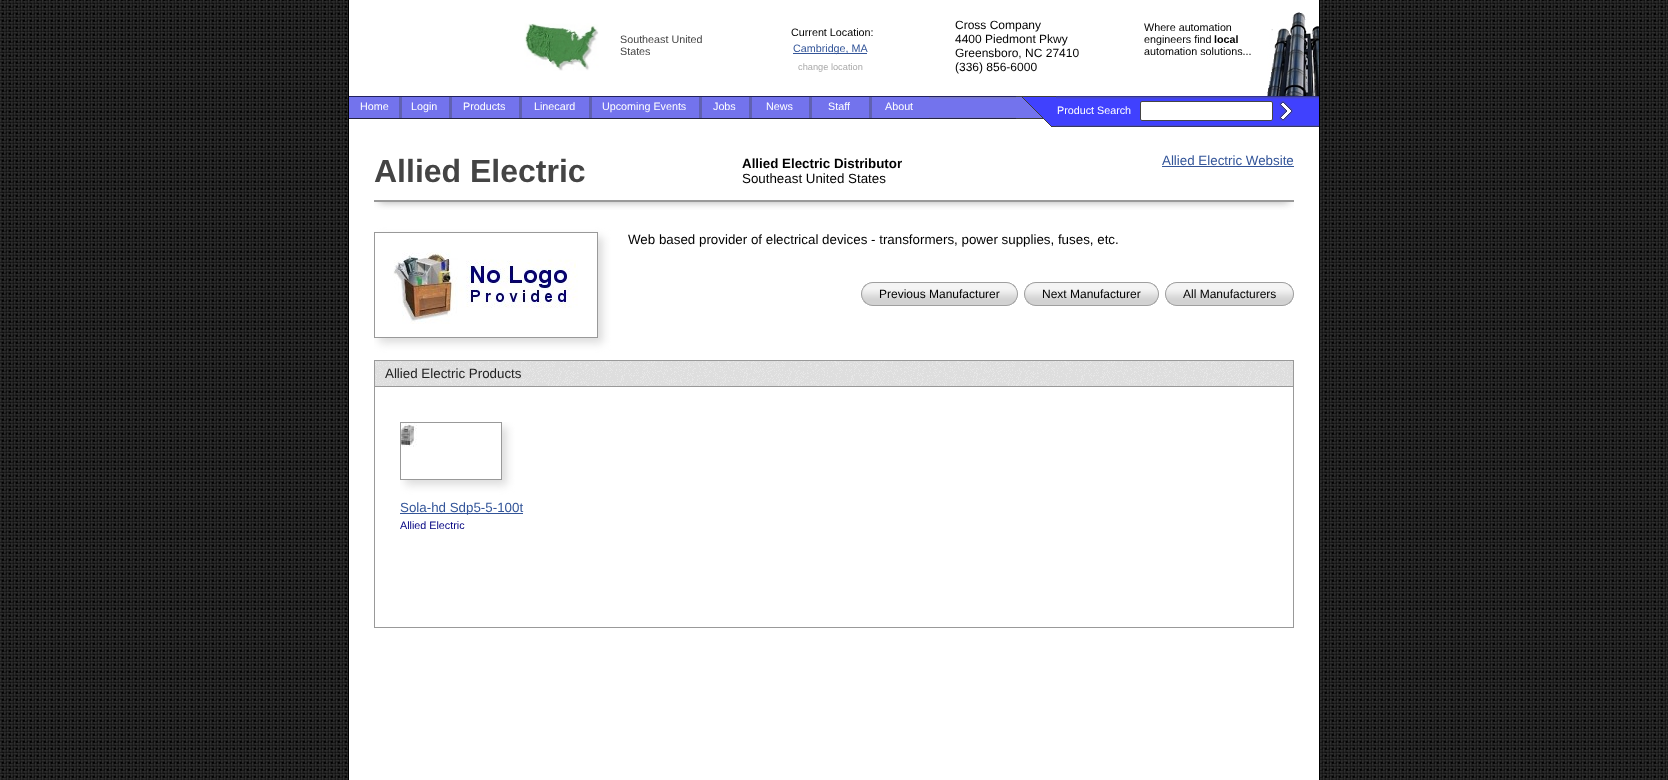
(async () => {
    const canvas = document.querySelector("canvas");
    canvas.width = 1668;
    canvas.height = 780;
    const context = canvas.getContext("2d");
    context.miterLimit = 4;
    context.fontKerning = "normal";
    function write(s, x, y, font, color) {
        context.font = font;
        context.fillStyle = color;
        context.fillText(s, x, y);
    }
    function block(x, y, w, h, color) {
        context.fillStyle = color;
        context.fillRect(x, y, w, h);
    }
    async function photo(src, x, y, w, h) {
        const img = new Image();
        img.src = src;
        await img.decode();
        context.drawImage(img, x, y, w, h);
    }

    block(0, 0, 1668, 780, "rgb(255, 255, 255)");
    await photo("media/1.png", 0, 0, 1668, 780);
    context.beginPath();
    context.rect(348.5, -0.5, 971, 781);
    context.fill();
    context.strokeStyle = "rgb(0, 0, 0)";
    context.stroke();
    await photo("media/2.png", 524, 23, 75, 48);
    write("Southeast United", 620, 43, "10.75px Liberation Sans", "rgb(68, 68, 68)");
    write("States", 620, 55, "10.75px Liberation Sans", "rgb(68, 68, 68)");
    write("Current Location:", 791, 36, "10.75px Liberation Sans", "rgb(0, 0, 0)");
    block(793, 53, 74, 1, "rgb(51, 85, 153)");
    write("Cambridge, MA", 793, 52, "10.75px Liberation Sans", "rgb(51, 85, 153)");
    write("change location", 798, 70, "9.25px Liberation Sans", "rgb(170, 170, 170)");
    write("Cross Company", 955, 29, "12px Liberation Sans", "rgb(0, 0, 0)");
    write("4400 Piedmont Pkwy", 955, 43, "12px Liberation Sans", "rgb(0, 0, 0)");
    write("Greensboro, NC 27410", 955, 57, "12px Liberation Sans", "rgb(0, 0, 0)");
    write("(336) 856-6000", 955, 71, "12px Liberation Sans", "rgb(0, 0, 0)");
    await photo("media/3.png", 1267, 12, 52, 84);
    write("Where automation", 1144, 31, "10.75px Liberation Sans", "rgb(0, 0, 0)");
    write("engineers find", 1144, 43, "10.75px Liberation Sans", "rgb(0, 0, 0)");
    write("local", 1214, 43, "bold 10.75px Liberation Sans", "rgb(0, 0, 0)");
    write("automation solutions...", 1144, 55, "10.75px Liberation Sans", "rgb(0, 0, 0)");
    await photo("media/4.png", 349, 96, 667, 23);
    block(349, 97, 50, 21, "rgb(115, 115, 237)");
    write("Home", 360, 110, "10.75px Liberation Sans", "rgb(255, 255, 255)");
    block(402, 97, 47, 21, "rgb(115, 115, 237)");
    block(399, 97, 3, 21, "rgb(96, 97, 177)");
    write("Login", 411, 110, "10.75px Liberation Sans", "rgb(255, 255, 255)");
    block(452, 97, 67, 21, "rgb(115, 115, 237)");
    block(449, 97, 3, 21, "rgb(96, 97, 177)");
    write("Products", 463, 110, "10.75px Liberation Sans", "rgb(255, 255, 255)");
    block(522, 97, 67, 21, "rgb(115, 115, 237)");
    block(519, 97, 3, 21, "rgb(96, 97, 177)");
    write("Linecard", 534, 110, "10.75px Liberation Sans", "rgb(255, 255, 255)");
    block(592, 97, 107, 21, "rgb(115, 115, 237)");
    block(589, 97, 3, 21, "rgb(96, 97, 177)");
    write("Upcoming Events", 602, 110, "10.75px Liberation Sans", "rgb(255, 255, 255)");
    block(702, 97, 47, 21, "rgb(115, 115, 237)");
    block(699, 97, 3, 21, "rgb(96, 97, 177)");
    write("Jobs", 713, 110, "10.75px Liberation Sans", "rgb(255, 255, 255)");
    block(752, 97, 57, 21, "rgb(115, 115, 237)");
    block(749, 97, 3, 21, "rgb(96, 97, 177)");
    write("News", 766, 110, "10.75px Liberation Sans", "rgb(255, 255, 255)");
    block(812, 97, 57, 21, "rgb(115, 115, 237)");
    block(809, 97, 3, 21, "rgb(96, 97, 177)");
    write("Staff", 828, 110, "10.75px Liberation Sans", "rgb(255, 255, 255)");
    block(872, 97, 57, 21, "rgb(115, 115, 237)");
    block(869, 97, 3, 21, "rgb(96, 97, 177)");
    write("About", 885, 110, "10.75px Liberation Sans", "rgb(255, 255, 255)");
    await photo("media/5.png", 1016, 96, 40, 31);
    await photo("media/6.png", 1056, 96, 263, 31);
    write("Product Search", 1057, 114, "10.75px Liberation Sans", "rgb(255, 255, 255)");
    context.beginPath();
    context.roundRect(1140.5, 101.5, 132, 19, 1.5);
    context.fill();
    context.strokeStyle = "rgb(68, 68, 68)";
    context.stroke();
    await photo("media/7.png", 1279, 101, 14, 20);
    context.save();
    context.beginPath();
    context.rect(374, 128, 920, 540);
    context.clip();
    context.beginPath();
    context.rect(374, 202, 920, 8);
    context.clip();
    context.fillStyle = "rgb(170, 170, 170)";
    context.filter = "blur(4px)";
    context.beginPath();
    context.rect(379, 163, 910, 39);
    context.fill();
    context.filter = "none";
    context.restore();
    block(374, 200, 920, 2, "rgb(153, 153, 153)");
    write("Allied Electric", 374, 182, "bold 32px Liberation Sans", "rgb(68, 68, 68)");
    write("Allied Electric Distributor", 742, 168, "bold 13.35px Liberation Sans", "rgb(0, 0, 0)");
    write("Southeast United States", 742, 183, "13.35px Liberation Sans", "rgb(0, 0, 0)");
    write("Allied Electric Website", 1162, 165, "13.35px Liberation Sans", "rgb(51, 85, 153)");
    block(1162, 166, 132, 1, "rgb(51, 85, 153)");
    context.save();
    context.beginPath();
    context.rect(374, 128, 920, 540);
    context.clip();
    context.beginPath();
    context.moveTo(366, 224);
    context.lineTo(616, 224);
    context.lineTo(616, 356);
    context.lineTo(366, 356);
    context.closePath();
    context.moveTo(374, 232);
    context.lineTo(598, 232);
    context.lineTo(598, 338);
    context.lineTo(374, 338);
    context.closePath();
    context.clip("evenodd");
    context.fillStyle = "rgb(221, 221, 221)";
    context.filter = "blur(4px)";
    context.beginPath();
    context.rect(379, 237, 224, 106);
    context.fill();
    context.filter = "none";
    context.restore();
    context.strokeStyle = "rgb(153, 153, 153)";
    context.strokeRect(374.5, 232.5, 223, 105);
    await photo("media/8.png", 393, 250, 185, 74);
    write("Web based provider of electrical devices - transformers, power supplies, fuses, etc.", 628, 244, "13.35px Liberation Sans", "rgb(0, 0, 0)");
    await photo("media/9.png", 1000, 282, 18, 24);
    await photo("media/10.png", 861, 282, 139, 24);
    write("Previous Manufacturer", 879, 298, "12px Liberation Sans", "rgb(0, 0, 0)");
    await photo("media/9.png", 1141, 282, 18, 24);
    await photo("media/11.png", 1024, 282, 117, 24);
    write("Next Manufacturer", 1042, 298, "12px Liberation Sans", "rgb(0, 0, 0)");
    await photo("media/9.png", 1276, 282, 18, 24);
    await photo("media/12.png", 1165, 282, 111, 24);
    write("All Manufacturers", 1183, 298, "12px Liberation Sans", "rgb(0, 0, 0)");
    await photo("media/13.png", 375, 361, 918, 25);
    context.strokeRect(374.5, 360.5, 919, 26);
    write("Allied Electric Products", 385, 378, "13.35px Liberation Sans", "rgb(34, 34, 34)");
    block(1293, 387, 1, 241, "rgb(153, 153, 153)");
    block(374, 627, 920, 1, "rgb(153, 153, 153)");
    block(374, 387, 1, 241, "rgb(153, 153, 153)");
    context.save();
    context.beginPath();
    context.rect(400, 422, 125, 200);
    context.clip();
    context.beginPath();
    context.moveTo(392, 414);
    context.lineTo(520, 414);
    context.lineTo(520, 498);
    context.lineTo(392, 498);
    context.closePath();
    context.moveTo(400, 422);
    context.lineTo(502, 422);
    context.lineTo(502, 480);
    context.lineTo(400, 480);
    context.closePath();
    context.clip("evenodd");
    context.fillStyle = "rgb(221, 221, 221)";
    context.filter = "blur(4px)";
    context.beginPath();
    context.rect(405, 427, 102, 58);
    context.fill();
    context.filter = "none";
    context.restore();
    context.strokeRect(400.5, 422.5, 101, 57);
    await photo("media/14.png", 401, 423, 16, 24);
    block(400, 513, 123, 1, "rgb(51, 85, 153)");
    write("Sola-hd Sdp5-5-100t", 400, 512, "13.35px Liberation Sans", "rgb(51, 85, 153)");
    write("Allied Electric", 400, 529, "10.75px Liberation Sans", "rgb(0, 0, 128)");
})();
